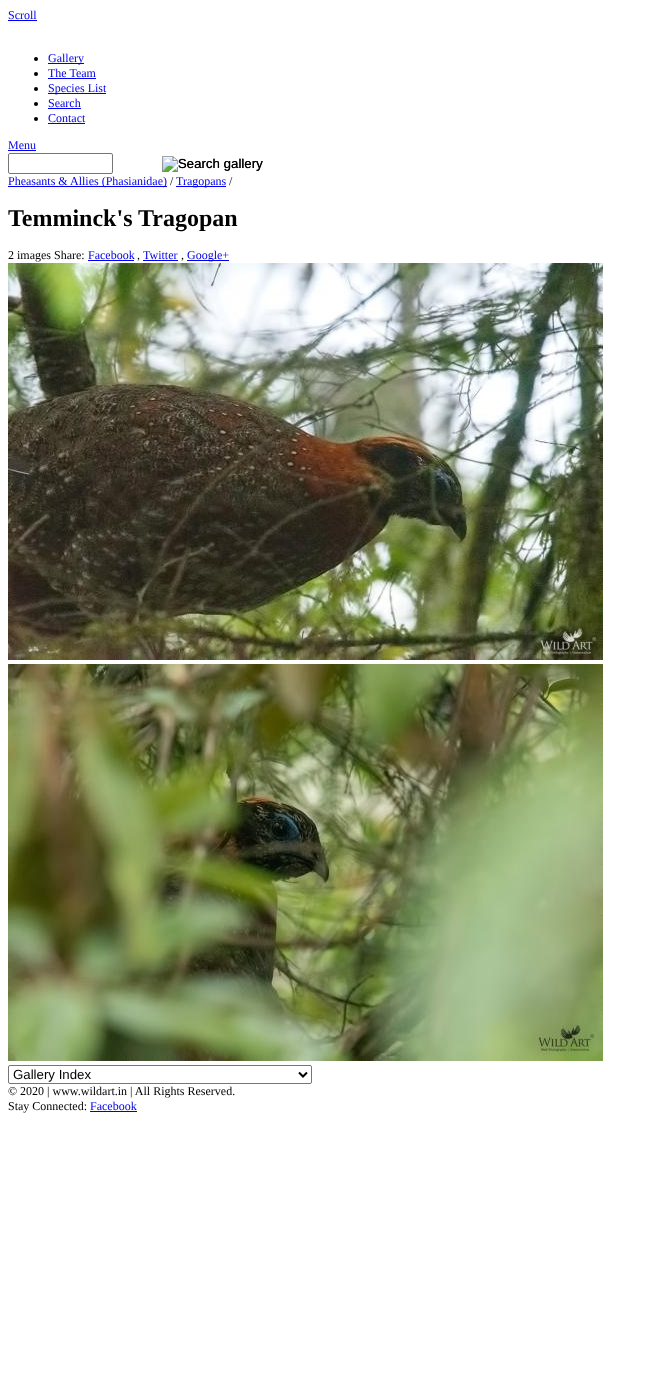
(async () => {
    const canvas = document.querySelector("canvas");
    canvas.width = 667;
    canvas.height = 1379;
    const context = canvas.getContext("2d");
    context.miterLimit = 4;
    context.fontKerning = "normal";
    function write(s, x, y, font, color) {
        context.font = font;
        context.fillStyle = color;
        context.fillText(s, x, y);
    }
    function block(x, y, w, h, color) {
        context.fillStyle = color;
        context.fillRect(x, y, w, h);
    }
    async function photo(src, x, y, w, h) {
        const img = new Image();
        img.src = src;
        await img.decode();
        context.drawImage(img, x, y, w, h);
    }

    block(0, 0, 667, 1379, "rgb(255, 255, 255)");
    write("Scroll", 8, 19, "12px Liberation Serif", "rgb(0, 0, 238)");
    block(8, 20, 29, 1, "rgb(0, 0, 238)");
    context.fillStyle = "rgb(0, 0, 0)";
    context.beginPath();
    context.arc(36, 59, 2, 0, Math.PI * 2);
    context.fill();
    block(48, 63, 36, 1, "rgb(0, 0, 238)");
    write("Gallery", 48, 62, "12px Liberation Serif", "rgb(0, 0, 238)");
    context.fillStyle = "rgb(0, 0, 0)";
    context.beginPath();
    context.arc(36, 74, 2, 0, Math.PI * 2);
    context.fill();
    write("The Team", 48, 77, "12px Liberation Serif", "rgb(0, 0, 238)");
    block(48, 78, 48, 1, "rgb(0, 0, 238)");
    context.fillStyle = "rgb(0, 0, 0)";
    context.beginPath();
    context.arc(36, 89, 2, 0, Math.PI * 2);
    context.fill();
    block(48, 93, 58, 1, "rgb(0, 0, 238)");
    write("Species List", 48, 92, "12px Liberation Serif", "rgb(0, 0, 238)");
    context.fillStyle = "rgb(0, 0, 0)";
    context.beginPath();
    context.arc(36, 104, 2, 0, Math.PI * 2);
    context.fill();
    write("Search", 48, 107, "12px Liberation Serif", "rgb(0, 0, 238)");
    block(48, 108, 33, 1, "rgb(0, 0, 238)");
    context.fillStyle = "rgb(0, 0, 0)";
    context.beginPath();
    context.arc(36, 119, 2, 0, Math.PI * 2);
    context.fill();
    write("Contact", 48, 122, "12px Liberation Serif", "rgb(0, 0, 238)");
    block(48, 123, 37, 1, "rgb(0, 0, 238)");
    write("Menu", 8, 149, "12px Liberation Serif", "rgb(0, 0, 238)");
    block(8, 150, 28, 1, "rgb(0, 0, 238)");
    context.beginPath();
    context.roundRect(8.5, 153.5, 104, 20, 1.5);
    context.strokeStyle = "rgb(118, 118, 118)";
    context.stroke();
    await photo("media/1.png", 162, 156, 101, 16);
    write("Search gallery", 178, 168, "13.25px Liberation Sans", "rgb(0, 0, 0)");
    block(8, 186, 159, 1, "rgb(0, 0, 238)");
    write("Pheasants & Allies (Phasianidae)", 8, 185, "12px Liberation Serif", "rgb(0, 0, 238)");
    write("/", 170, 185, "12px Liberation Serif", "rgb(0, 0, 0)");
    block(176, 186, 50, 1, "rgb(0, 0, 238)");
    write("Tragopans", 176, 185, "12px Liberation Serif", "rgb(0, 0, 238)");
    write("/", 229, 185, "12px Liberation Serif", "rgb(0, 0, 0)");
    write("Temminck's Tragopan", 8, 226, "bold 24px Liberation Serif", "rgb(0, 0, 0)");
    write("2 images Share:", 8, 259, "12px Liberation Serif", "rgb(0, 0, 0)");
    write("Facebook", 88, 259, "12px Liberation Serif", "rgb(0, 0, 238)");
    write(",", 137, 259, "12px Liberation Serif", "rgb(0, 0, 0)");
    block(88, 260, 46, 1, "rgb(0, 0, 238)");
    block(143, 260, 35, 1, "rgb(0, 0, 238)");
    write("Twitter", 143, 259, "12px Liberation Serif", "rgb(0, 0, 238)");
    write(",", 181, 259, "12px Liberation Serif", "rgb(0, 0, 0)");
    block(187, 260, 42, 1, "rgb(0, 0, 238)");
    write("Google+", 187, 259, "12px Liberation Serif", "rgb(0, 0, 238)");
    await photo("media/2.png", 8, 263, 595, 397);
    await photo("media/3.png", 8, 664, 595, 397);
    context.beginPath();
    context.roundRect(8.5, 1065.5, 303, 18, 1.5);
    context.stroke();
    context.beginPath();
    context.moveTo(299, 1072.5);
    context.lineTo(303, 1076.5);
    context.lineTo(307, 1072.5);
    context.strokeStyle = "rgb(0, 0, 0)";
    context.lineWidth = 2;
    context.stroke();
    write("Gallery Index", 13, 1079, "13.25px Liberation Sans", "rgb(0, 0, 0)");
    write("© 2020 | www.wildart.in | All Rights Reserved.", 8, 1095, "12px Liberation Serif", "rgb(0, 0, 0)");
    write("Stay Connected:", 8, 1110, "12px Liberation Serif", "rgb(0, 0, 0)");
    write("Facebook", 90, 1110, "12px Liberation Serif", "rgb(0, 0, 238)");
    block(90, 1111, 47, 1, "rgb(0, 0, 238)");
})();
